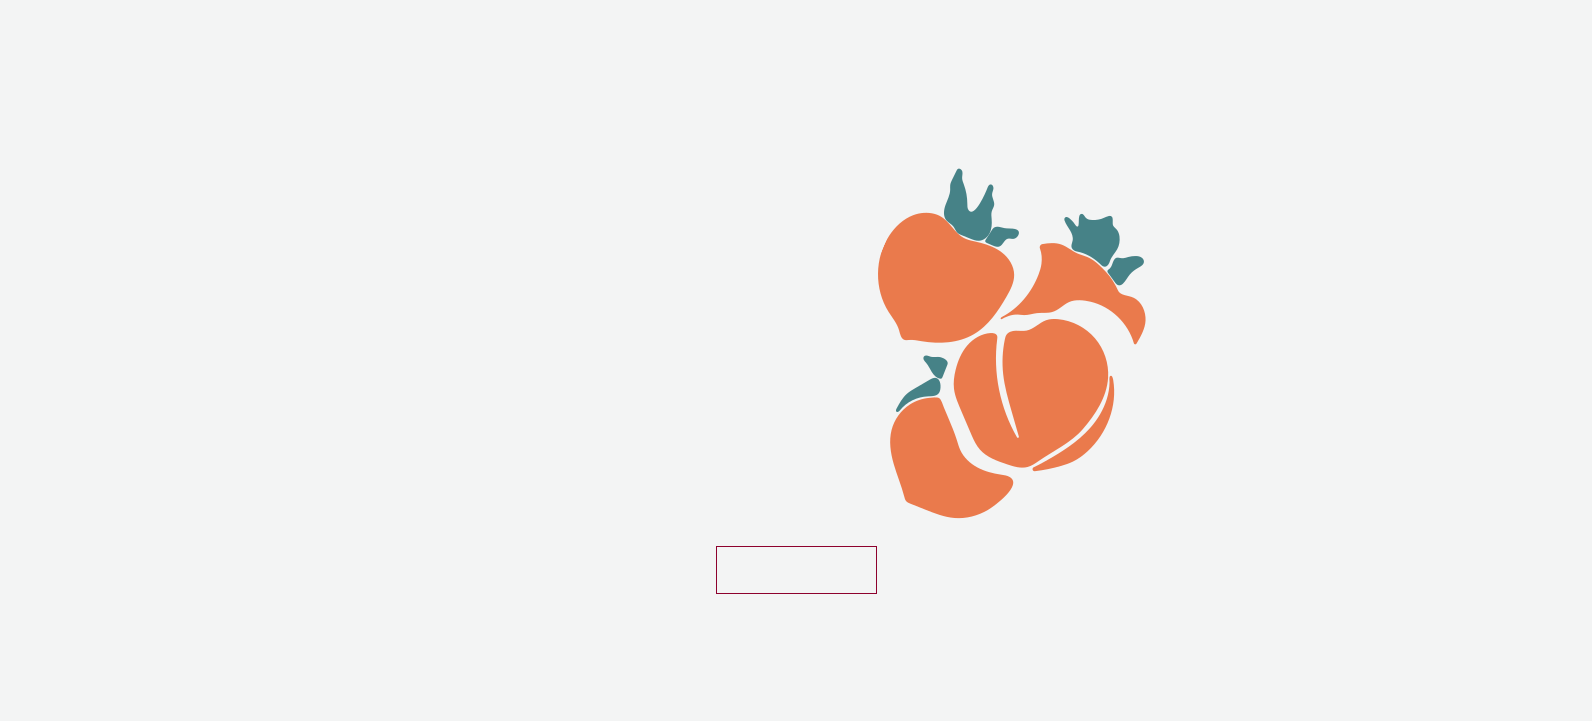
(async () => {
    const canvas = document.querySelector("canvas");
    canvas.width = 1592;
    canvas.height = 721;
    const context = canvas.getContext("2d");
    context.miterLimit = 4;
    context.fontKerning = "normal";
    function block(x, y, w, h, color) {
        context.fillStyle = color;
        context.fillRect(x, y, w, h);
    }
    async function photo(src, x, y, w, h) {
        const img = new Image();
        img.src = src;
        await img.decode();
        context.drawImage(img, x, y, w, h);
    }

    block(0, 0, 1592, 721, "rgb(243, 244, 244)");
    await photo("media/1.png", 878, 168, 268, 351);
    context.strokeStyle = "rgb(141, 1, 45)";
    context.strokeRect(716.5, 546.5, 160, 47);
})();
